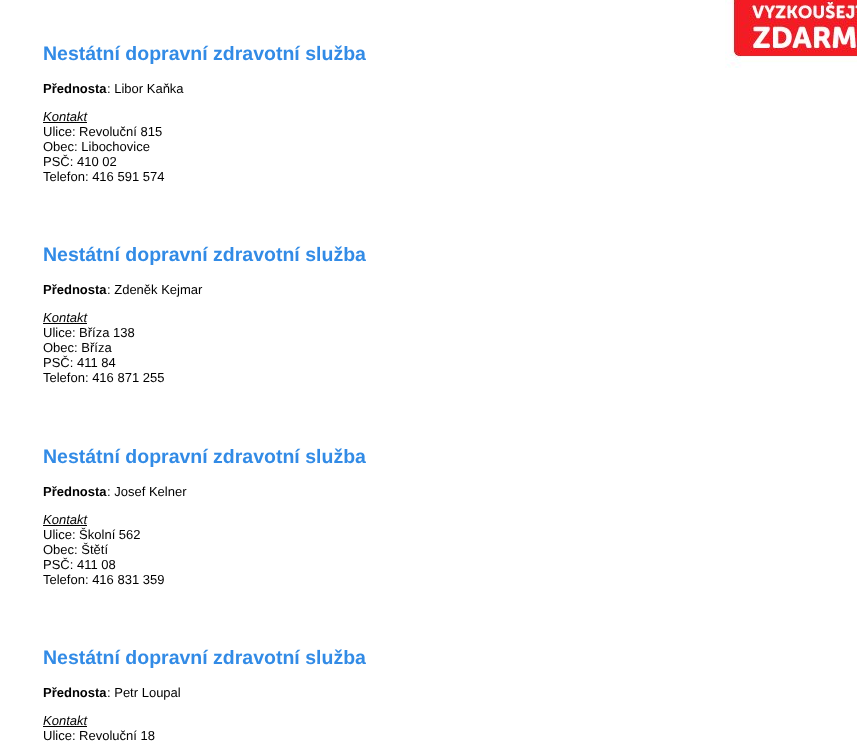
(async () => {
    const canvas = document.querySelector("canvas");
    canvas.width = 857;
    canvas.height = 744;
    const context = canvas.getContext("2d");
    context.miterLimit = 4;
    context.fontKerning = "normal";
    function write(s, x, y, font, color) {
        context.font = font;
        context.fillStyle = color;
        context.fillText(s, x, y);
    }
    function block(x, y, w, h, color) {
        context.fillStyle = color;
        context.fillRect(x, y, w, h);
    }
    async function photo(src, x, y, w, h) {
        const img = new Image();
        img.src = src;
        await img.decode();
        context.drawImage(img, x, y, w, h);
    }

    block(0, 0, 857, 744, "rgb(255, 255, 255)");
    await photo("media/1.png", 725, 0, 132, 68);
    write("Nestátní dopravní zdravotní služba", 43, 60, "bold 19.5px Liberation Sans", "rgb(50, 139, 230)");
    write("Přednosta", 43, 93, "bold 13px Liberation Sans", "rgb(0, 0, 0)");
    write(": Libor Kaňka", 107, 93, "13px Liberation Sans", "rgb(0, 0, 0)");
    write("Kontakt", 43, 121, "italic 13px Liberation Sans", "rgb(0, 0, 0)");
    block(43, 122, 44, 1, "rgb(0, 0, 0)");
    write("Ulice: Revoluční 815", 43, 136, "13px Liberation Sans", "rgb(0, 0, 0)");
    write("Obec: Libochovice", 43, 151, "13px Liberation Sans", "rgb(0, 0, 0)");
    write("PSČ: 410 02", 43, 166, "13px Liberation Sans", "rgb(0, 0, 0)");
    write("Telefon: 416 591 574", 43, 181, "13px Liberation Sans", "rgb(0, 0, 0)");
    write("Nestátní dopravní zdravotní služba", 43, 261, "bold 19.5px Liberation Sans", "rgb(50, 139, 230)");
    write("Přednosta", 43, 294, "bold 13px Liberation Sans", "rgb(0, 0, 0)");
    write(": Zdeněk Kejmar", 107, 294, "13px Liberation Sans", "rgb(0, 0, 0)");
    write("Kontakt", 43, 322, "italic 13px Liberation Sans", "rgb(0, 0, 0)");
    block(43, 323, 44, 1, "rgb(0, 0, 0)");
    write("Ulice: Bříza 138", 43, 337, "13px Liberation Sans", "rgb(0, 0, 0)");
    write("Obec: Bříza", 43, 352, "13px Liberation Sans", "rgb(0, 0, 0)");
    write("PSČ: 411 84", 43, 367, "13px Liberation Sans", "rgb(0, 0, 0)");
    write("Telefon: 416 871 255", 43, 382, "13px Liberation Sans", "rgb(0, 0, 0)");
    write("Nestátní dopravní zdravotní služba", 43, 463, "bold 19.5px Liberation Sans", "rgb(50, 139, 230)");
    write("Přednosta", 43, 496, "bold 13px Liberation Sans", "rgb(0, 0, 0)");
    write(": Josef Kelner", 107, 496, "13px Liberation Sans", "rgb(0, 0, 0)");
    write("Kontakt", 43, 524, "italic 13px Liberation Sans", "rgb(0, 0, 0)");
    block(43, 525, 44, 1, "rgb(0, 0, 0)");
    write("Ulice: Školní 562", 43, 539, "13px Liberation Sans", "rgb(0, 0, 0)");
    write("Obec: Štětí", 43, 554, "13px Liberation Sans", "rgb(0, 0, 0)");
    write("PSČ: 411 08", 43, 569, "13px Liberation Sans", "rgb(0, 0, 0)");
    write("Telefon: 416 831 359", 43, 584, "13px Liberation Sans", "rgb(0, 0, 0)");
    write("Nestátní dopravní zdravotní služba", 43, 664, "bold 19.5px Liberation Sans", "rgb(50, 139, 230)");
    write("Přednosta", 43, 697, "bold 13px Liberation Sans", "rgb(0, 0, 0)");
    write(": Petr Loupal", 107, 697, "13px Liberation Sans", "rgb(0, 0, 0)");
    write("Kontakt", 43, 725, "italic 13px Liberation Sans", "rgb(0, 0, 0)");
    block(43, 726, 44, 1, "rgb(0, 0, 0)");
    write("Ulice: Revoluční 18", 43, 740, "13px Liberation Sans", "rgb(0, 0, 0)");
})();
